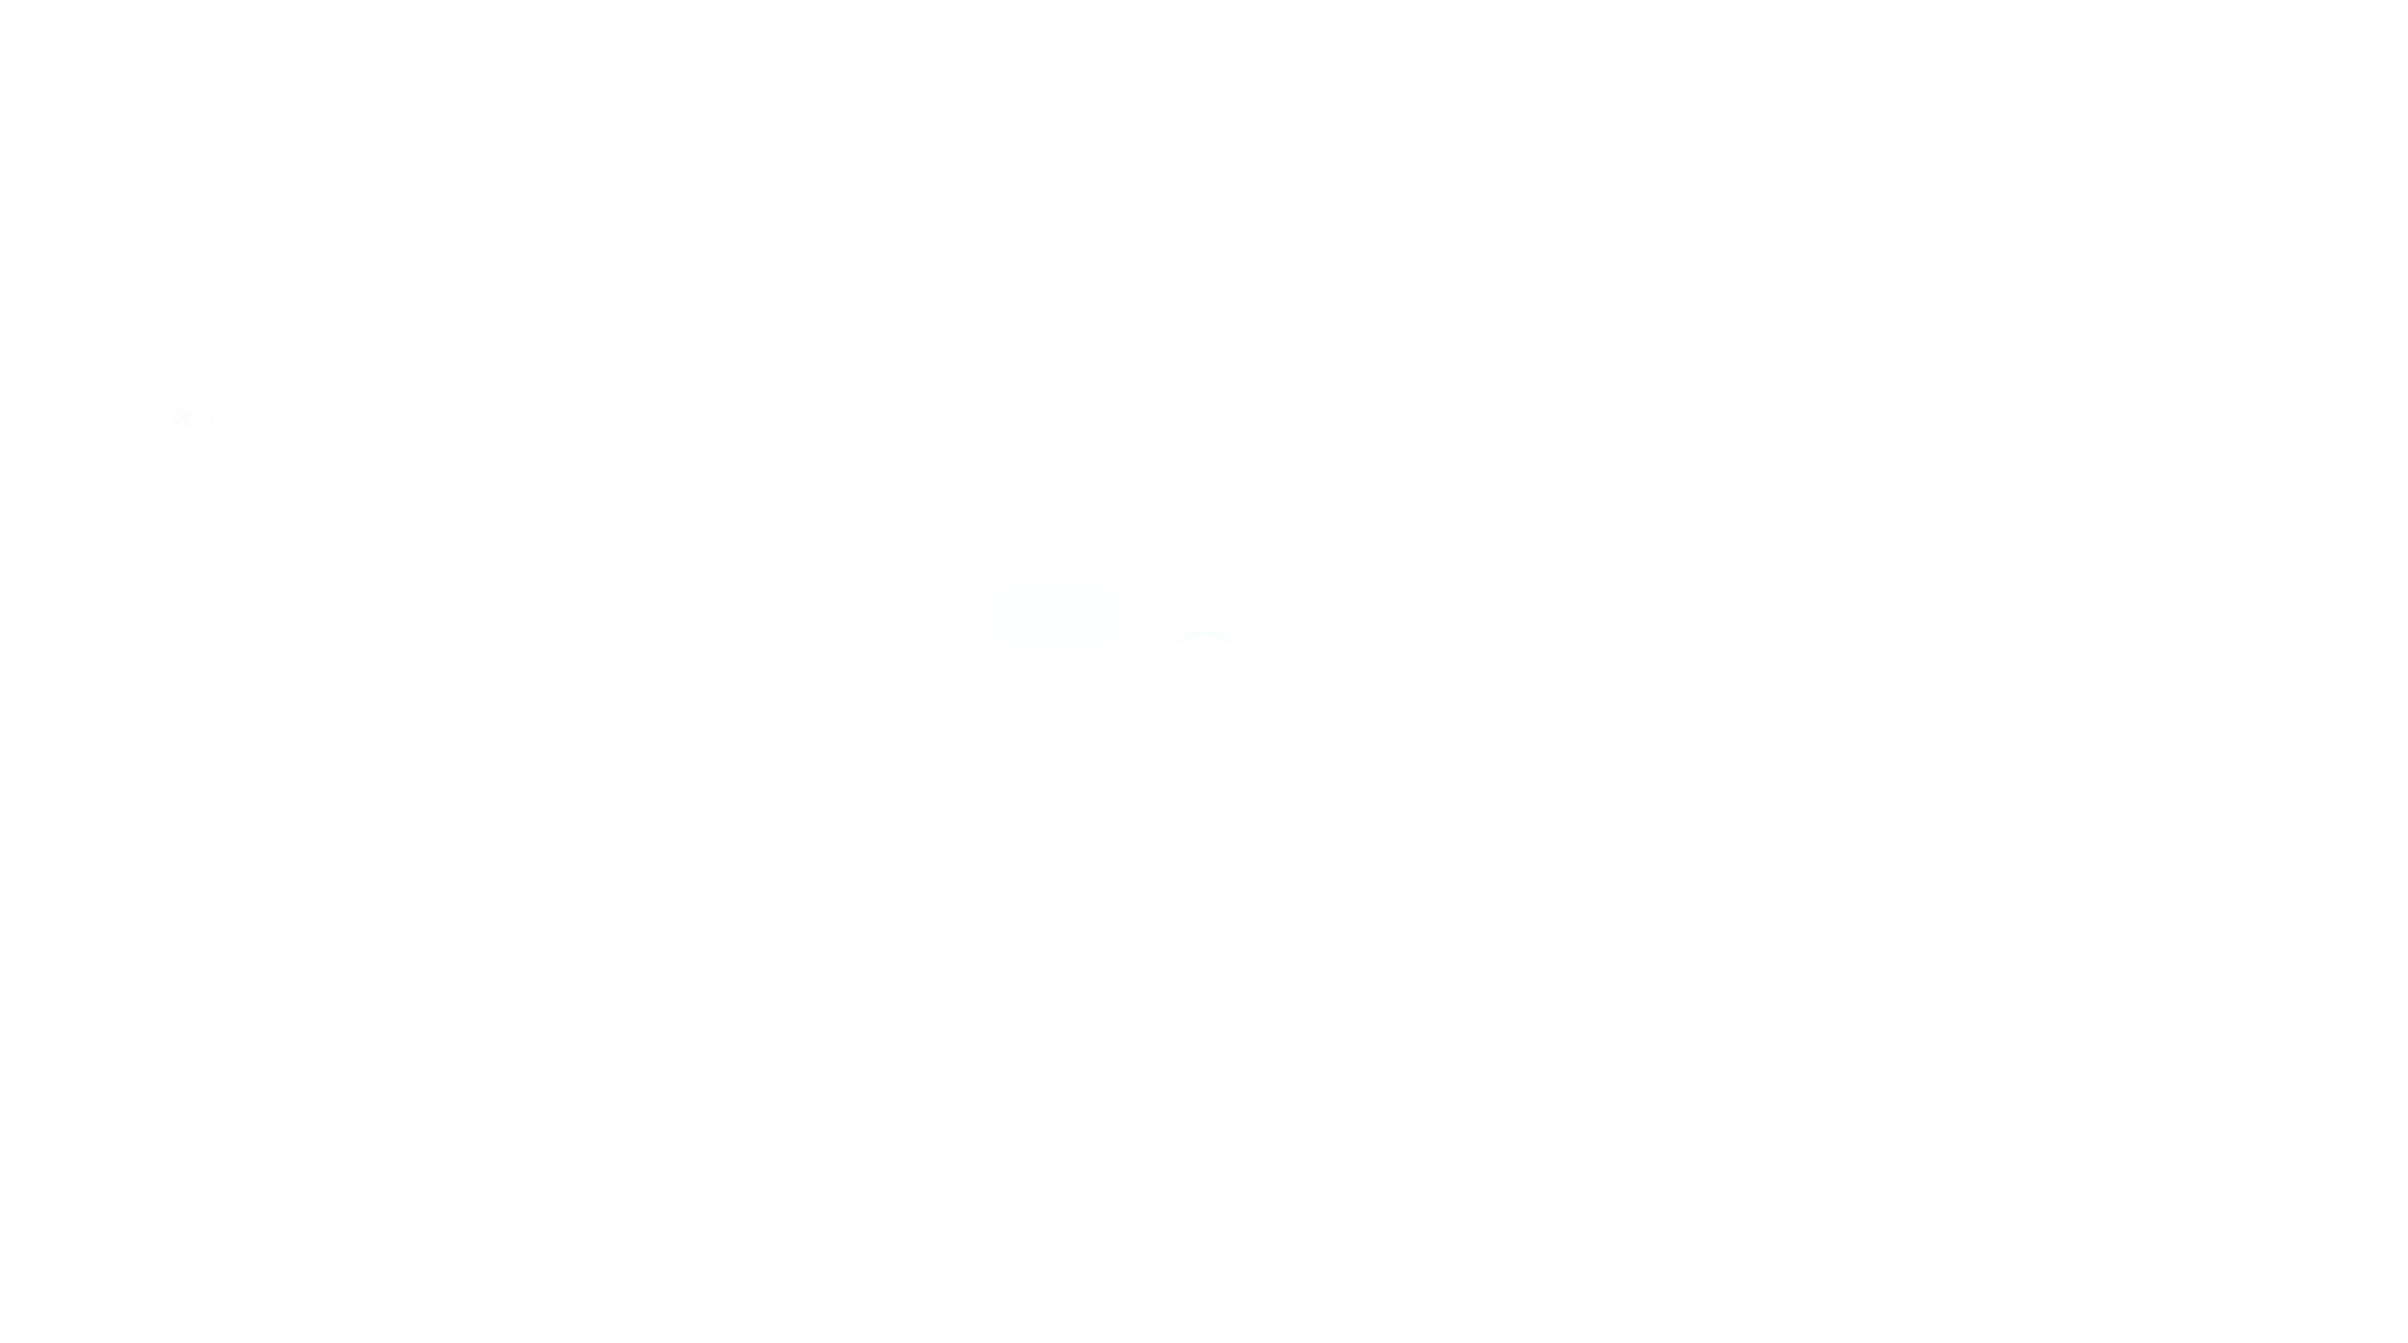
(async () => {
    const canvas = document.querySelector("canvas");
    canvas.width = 2408;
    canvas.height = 1343;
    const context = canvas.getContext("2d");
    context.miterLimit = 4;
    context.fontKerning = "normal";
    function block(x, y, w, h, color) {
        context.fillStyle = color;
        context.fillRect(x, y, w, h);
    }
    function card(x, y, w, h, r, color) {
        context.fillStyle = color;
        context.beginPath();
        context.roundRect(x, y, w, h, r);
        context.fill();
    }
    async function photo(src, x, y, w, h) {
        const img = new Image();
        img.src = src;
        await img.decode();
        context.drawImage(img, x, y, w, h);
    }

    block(0, 0, 2408, 1343, "rgb(255, 255, 255)");
    await photo("media/1.png", 171, 408, 22, 19);
    await photo("media/2.png", 206, 411, 9, 16);
    await photo("media/3.png", 322, 411, 8, 16);
    card(987, 581, 140, 70, 35, "rgb(252, 254, 255)");
    context.beginPath();
    context.moveTo(1176, 644);
    context.bezierCurveTo(1191.5, 629, 1216.5, 629, 1232, 644);
    context.strokeStyle = "rgb(249, 254, 255)";
    context.lineWidth = 5.2;
    context.stroke();
})();
